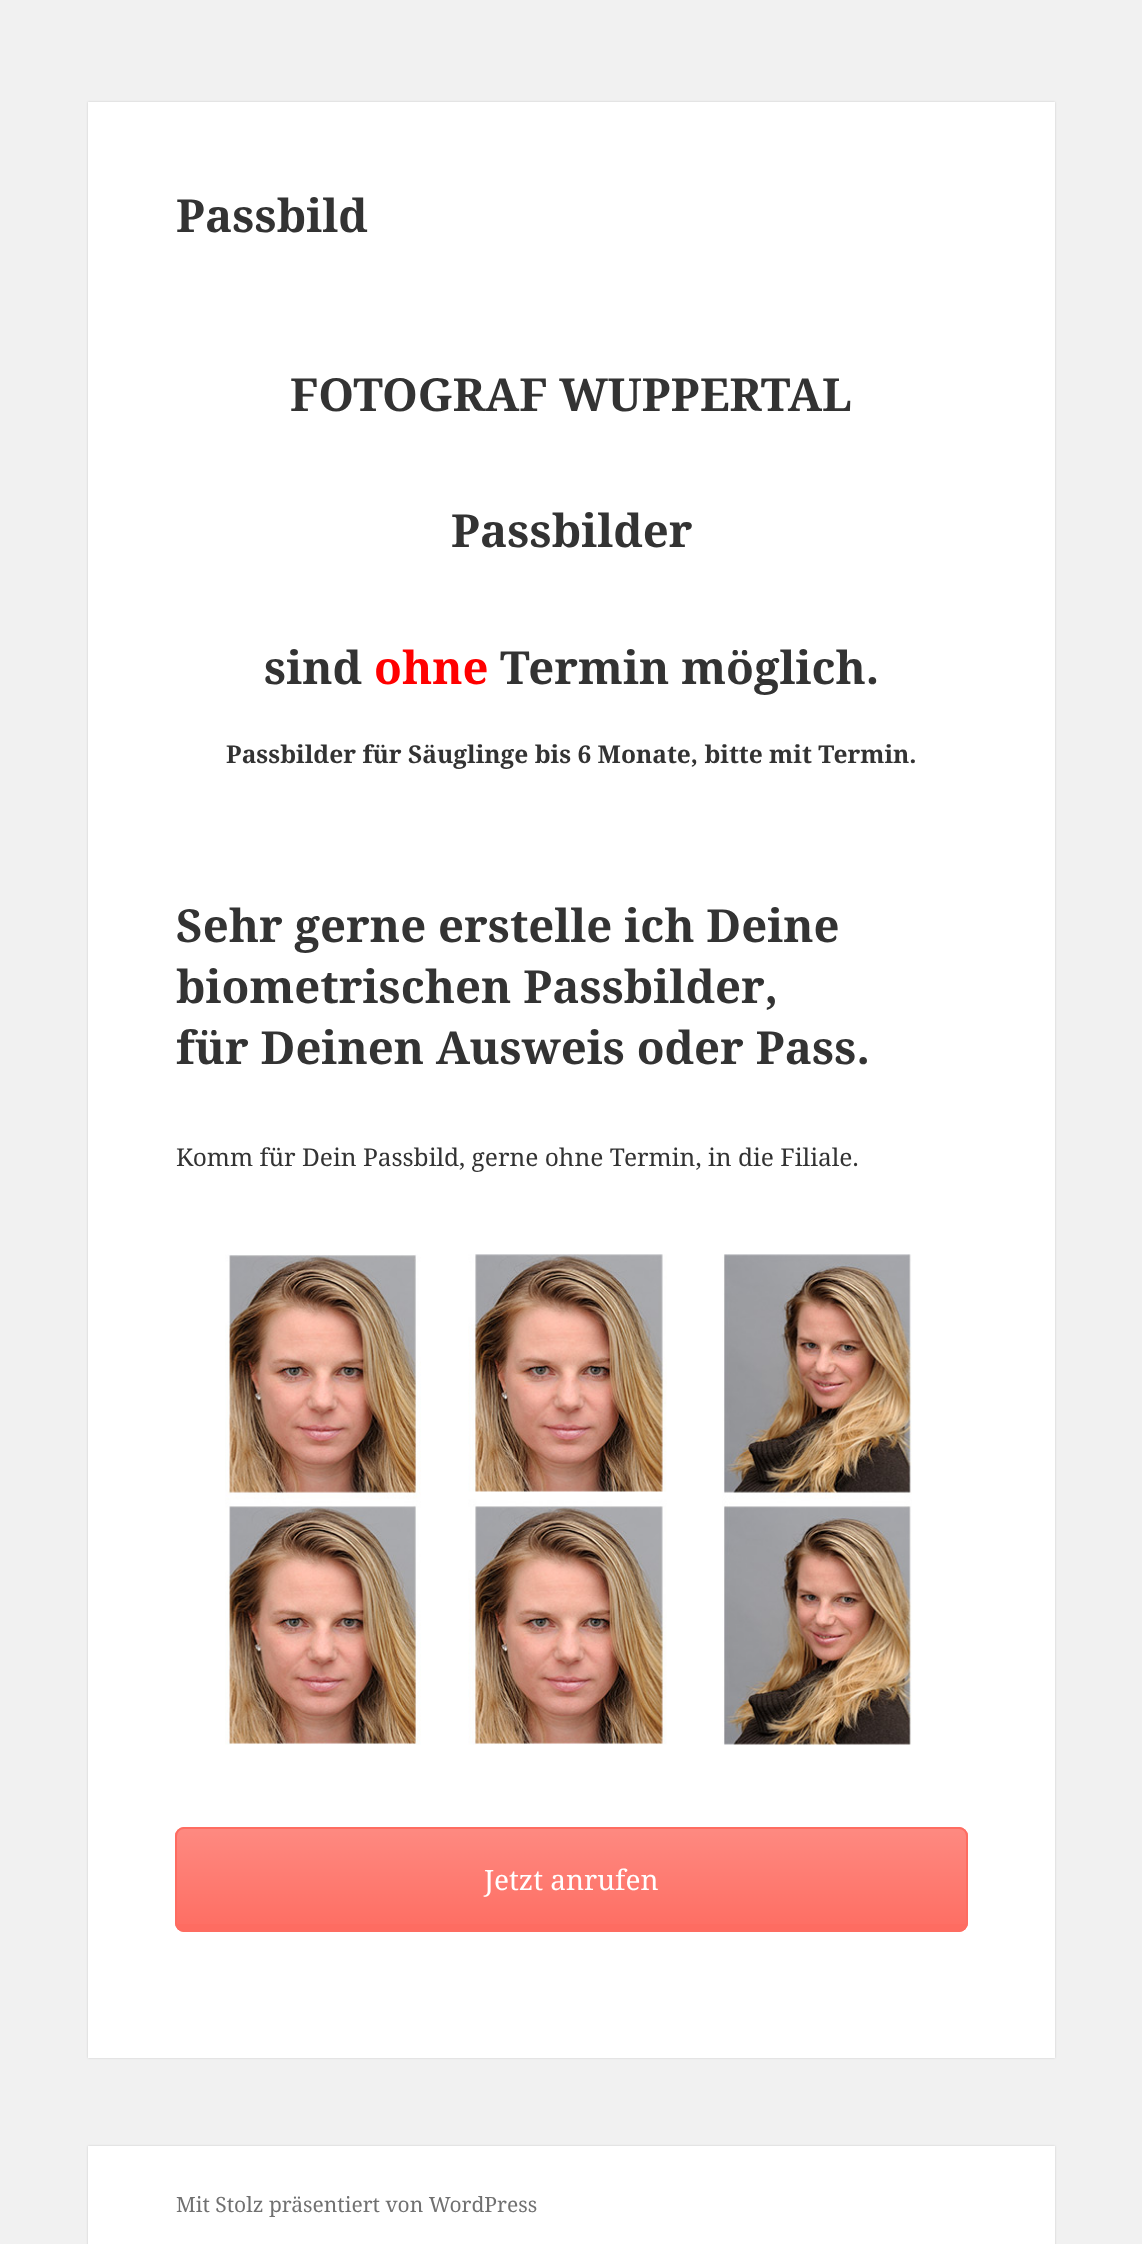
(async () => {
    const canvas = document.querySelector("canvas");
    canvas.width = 1142;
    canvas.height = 2244;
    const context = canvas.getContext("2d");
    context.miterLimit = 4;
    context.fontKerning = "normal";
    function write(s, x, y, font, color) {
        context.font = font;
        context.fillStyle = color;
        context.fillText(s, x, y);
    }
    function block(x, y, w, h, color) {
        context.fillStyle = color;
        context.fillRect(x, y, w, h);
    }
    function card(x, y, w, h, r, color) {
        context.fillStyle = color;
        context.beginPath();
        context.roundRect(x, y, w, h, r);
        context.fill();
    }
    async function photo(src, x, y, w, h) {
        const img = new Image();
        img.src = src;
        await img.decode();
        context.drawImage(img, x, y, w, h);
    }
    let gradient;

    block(0, 0, 1142, 2244, "rgb(241, 241, 241)");
    context.fillStyle = "rgba(0, 0, 0, 0.15)";
    context.filter = "blur(1px)";
    context.beginPath();
    context.rect(88, 102, 967, 1956);
    context.fill();
    context.filter = "none";
    block(88, 102, 967, 1956, "rgb(255, 255, 255)");
    write("Passbild", 176, 232, "bold 45.5px Noto Serif", "rgb(51, 51, 51)");
    write("FOTOGRAF WUPPERTAL", 290, 411, "bold 45.5px Noto Serif", "rgb(51, 51, 51)");
    write("Passbilder", 451, 547, "bold 45.5px Noto Serif", "rgb(51, 51, 51)");
    write("sind", 264, 684, "bold 45.5px Noto Serif", "rgb(51, 51, 51)");
    write("ohne", 374, 684, "bold 45.5px Noto Serif", "rgb(255, 0, 0)");
    write("Termin möglich.", 500, 684, "bold 45.5px Noto Serif", "rgb(51, 51, 51)");
    write("Passbilder für Säuglinge bis 6 Monate, bitte mit Termin.", 226, 763, "bold 24.5px Noto Serif", "rgb(51, 51, 51)");
    write("Sehr gerne erstelle ich Deine", 176, 942, "bold 45.5px Noto Serif", "rgb(51, 51, 51)");
    write("biometrischen Passbilder,", 176, 1003, "bold 45.5px Noto Serif", "rgb(51, 51, 51)");
    write("für Deinen Ausweis oder Pass.", 176, 1064, "bold 45.5px Noto Serif", "rgb(51, 51, 51)");
    write("Komm für Dein Passbild, gerne ohne Termin, in die Filiale.", 176, 1166, "24.5px Noto Serif", "rgb(51, 51, 51)");
    await photo("media/1.png", 225, 1254, 687, 491);
    card(175, 1827, 793, 105, 9, "rgb(254, 108, 97)");
    context.save();
    context.beginPath();
    context.roundRect(175, 1827, 793, 105, 9);
    context.clip();
    gradient = context.createLinearGradient(571, 1829, 571, 1930);
    gradient.addColorStop(0, "rgba(255, 255, 255, 0.2)");
    gradient.addColorStop(1, "rgba(255, 255, 255, 0.01)");
    context.fillStyle = gradient;
    context.fillRect(175, 1829, 793, 95);
    context.restore();
    context.beginPath();
    context.roundRect(176, 1828, 791, 103, 8);
    context.strokeStyle = "rgb(254, 108, 97)";
    context.lineWidth = 2;
    context.stroke();
    write("Jetzt anrufen", 484, 1890, "28px Noto Serif", "rgb(255, 255, 255)");
    context.fillStyle = "rgba(0, 0, 0, 0.15)";
    context.filter = "blur(1px)";
    context.beginPath();
    context.rect(88, 2146, 967, 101);
    context.fill();
    context.filter = "none";
    block(88, 2146, 967, 98, "rgb(255, 255, 255)");
    write("Mit Stolz präsentiert von WordPress", 176, 2212, "21px Noto Serif", "rgb(112, 112, 112)");
})();
